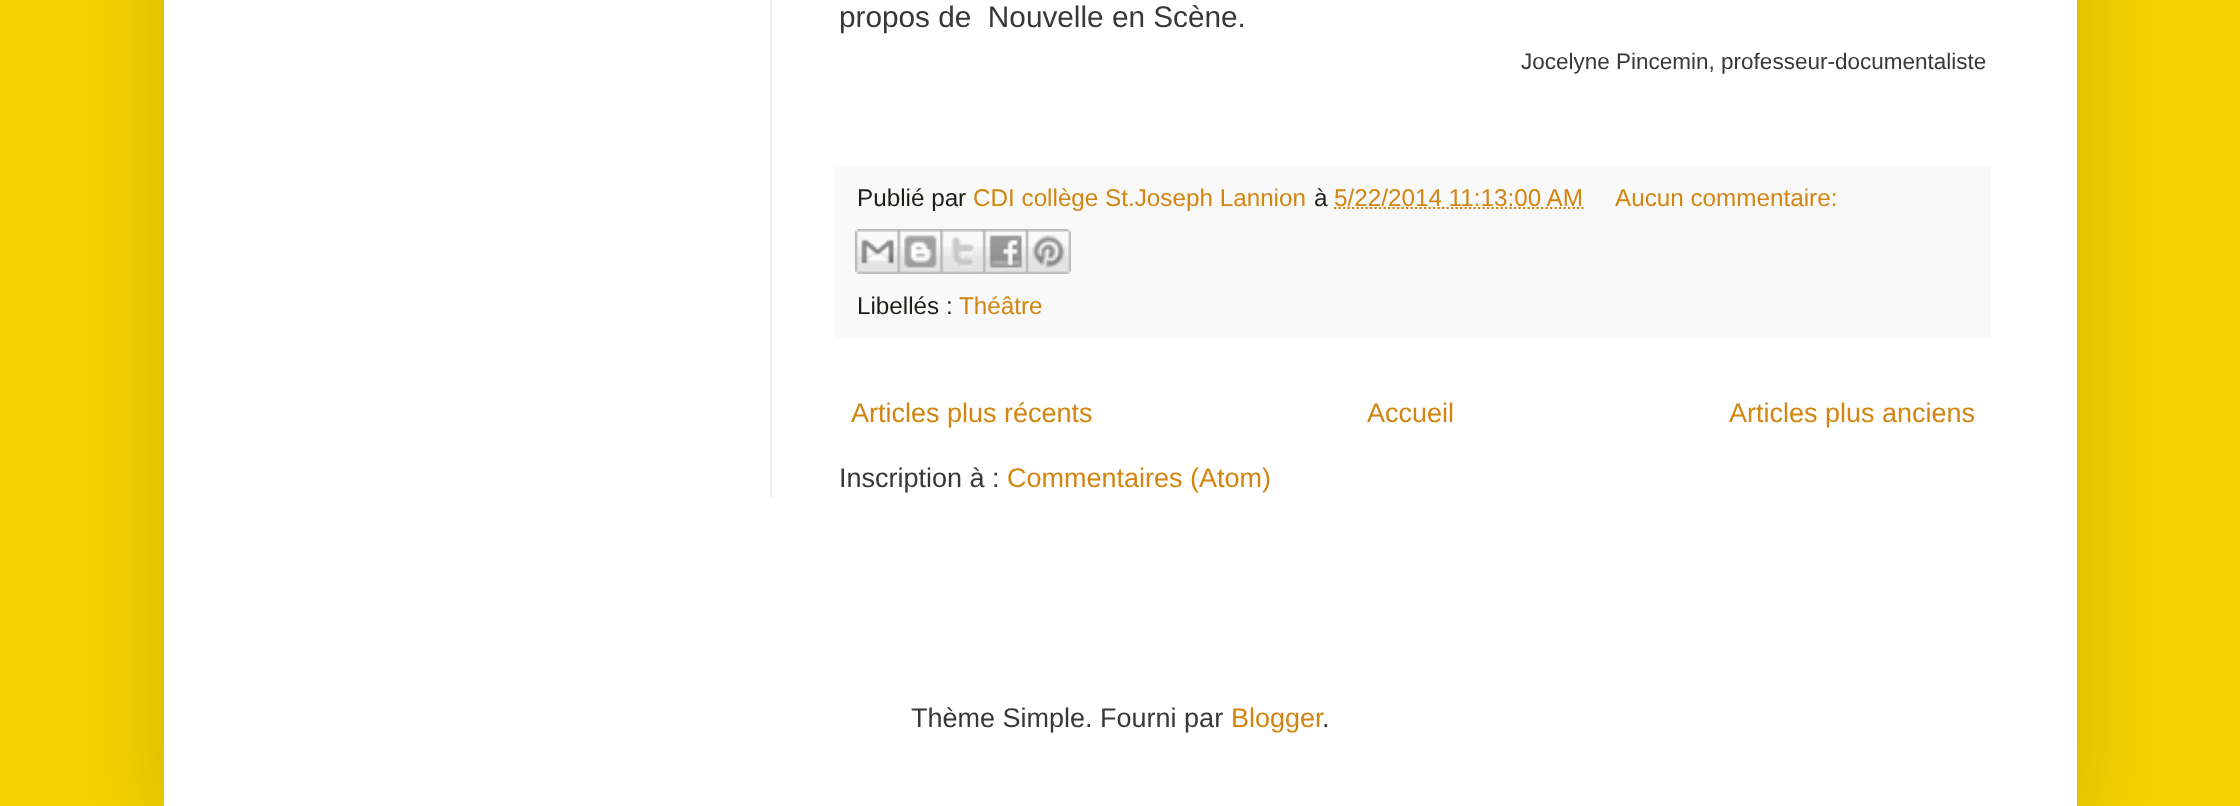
(async () => {
    const canvas = document.querySelector("canvas");
    canvas.width = 2240;
    canvas.height = 806;
    const context = canvas.getContext("2d");
    context.miterLimit = 4;
    context.fontKerning = "normal";
    function write(s, x, y, font, color) {
        context.font = font;
        context.fillStyle = color;
        context.fillText(s, x, y);
    }
    function block(x, y, w, h, color) {
        context.fillStyle = color;
        context.fillRect(x, y, w, h);
    }
    async function photo(src, x, y, w, h) {
        const img = new Image();
        img.src = src;
        await img.decode();
        context.drawImage(img, x, y, w, h);
    }

    block(0, 0, 2240, 806, "rgb(244, 210, 0)");
    context.fillStyle = "rgba(0, 0, 0, 0.15)";
    context.filter = "blur(45px)";
    context.beginPath();
    context.rect(164, -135, 1913, 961);
    context.fill();
    context.filter = "none";
    block(164, 0, 1913, 806, "rgb(255, 255, 255)");
    block(770, 0, 2, 497, "rgb(238, 238, 238)");
    write("propos de  Nouvelle en Scène.", 839, 27, "29.75px Liberation Sans", "rgb(56, 56, 56)");
    write("Jocelyne Pincemin, professeur-documentaliste", 1521, 69, "22.5px Liberation Sans", "rgb(56, 56, 56)");
    block(835, 167, 1156, 171, "rgb(249, 249, 249)");
    write("Publié par", 857, 206, "24.25px Liberation Sans", "rgb(26, 31, 24)");
    write("CDI collège St.Joseph Lannion", 973, 206, "24.25px Liberation Sans", "rgb(210, 133, 17)");
    write("à", 1314, 206, "24.25px Liberation Sans", "rgb(26, 31, 24)");
    context.beginPath();
    context.moveTo(1334, 208);
    context.lineTo(1583.5, 208);
    context.strokeStyle = "rgb(210, 133, 17)";
    context.lineWidth = 2.2;
    context.setLineDash([2.25, 2.25]);
    context.stroke();
    write("5/22/2014 11:13:00 AM", 1334, 206, "24.25px Liberation Sans", "rgb(210, 133, 17)");
    write("Aucun commentaire:", 1615, 206, "24.25px Liberation Sans", "rgb(210, 133, 17)");
    await photo("media/1.png", 855, 229, 43, 45);
    await photo("media/2.png", 897, 229, 44, 45);
    await photo("media/3.png", 940, 229, 44, 45);
    await photo("media/4.png", 983, 229, 43, 45);
    await photo("media/5.png", 1026, 229, 45, 45);
    write("Libellés :", 857, 314, "24.25px Liberation Sans", "rgb(26, 31, 24)");
    write("Théâtre", 959, 314, "24.25px Liberation Sans", "rgb(210, 133, 17)");
    write("Articles plus récents", 851, 422, "27px Liberation Sans", "rgb(210, 133, 17)");
    write("Accueil", 1367, 422, "27px Liberation Sans", "rgb(210, 133, 17)");
    write("Articles plus anciens", 1729, 422, "27px Liberation Sans", "rgb(210, 133, 17)");
    write("Inscription à :", 839, 487, "27px Liberation Sans", "rgb(56, 56, 56)");
    write("Commentaires (Atom)", 1007, 487, "27px Liberation Sans", "rgb(210, 133, 17)");
    write("Thème Simple. Fourni par", 911, 727, "27px Liberation Sans", "rgb(56, 56, 56)");
    write("Blogger", 1231, 727, "27px Liberation Sans", "rgb(210, 133, 17)");
    write(".", 1322, 727, "27px Liberation Sans", "rgb(56, 56, 56)");
})();
